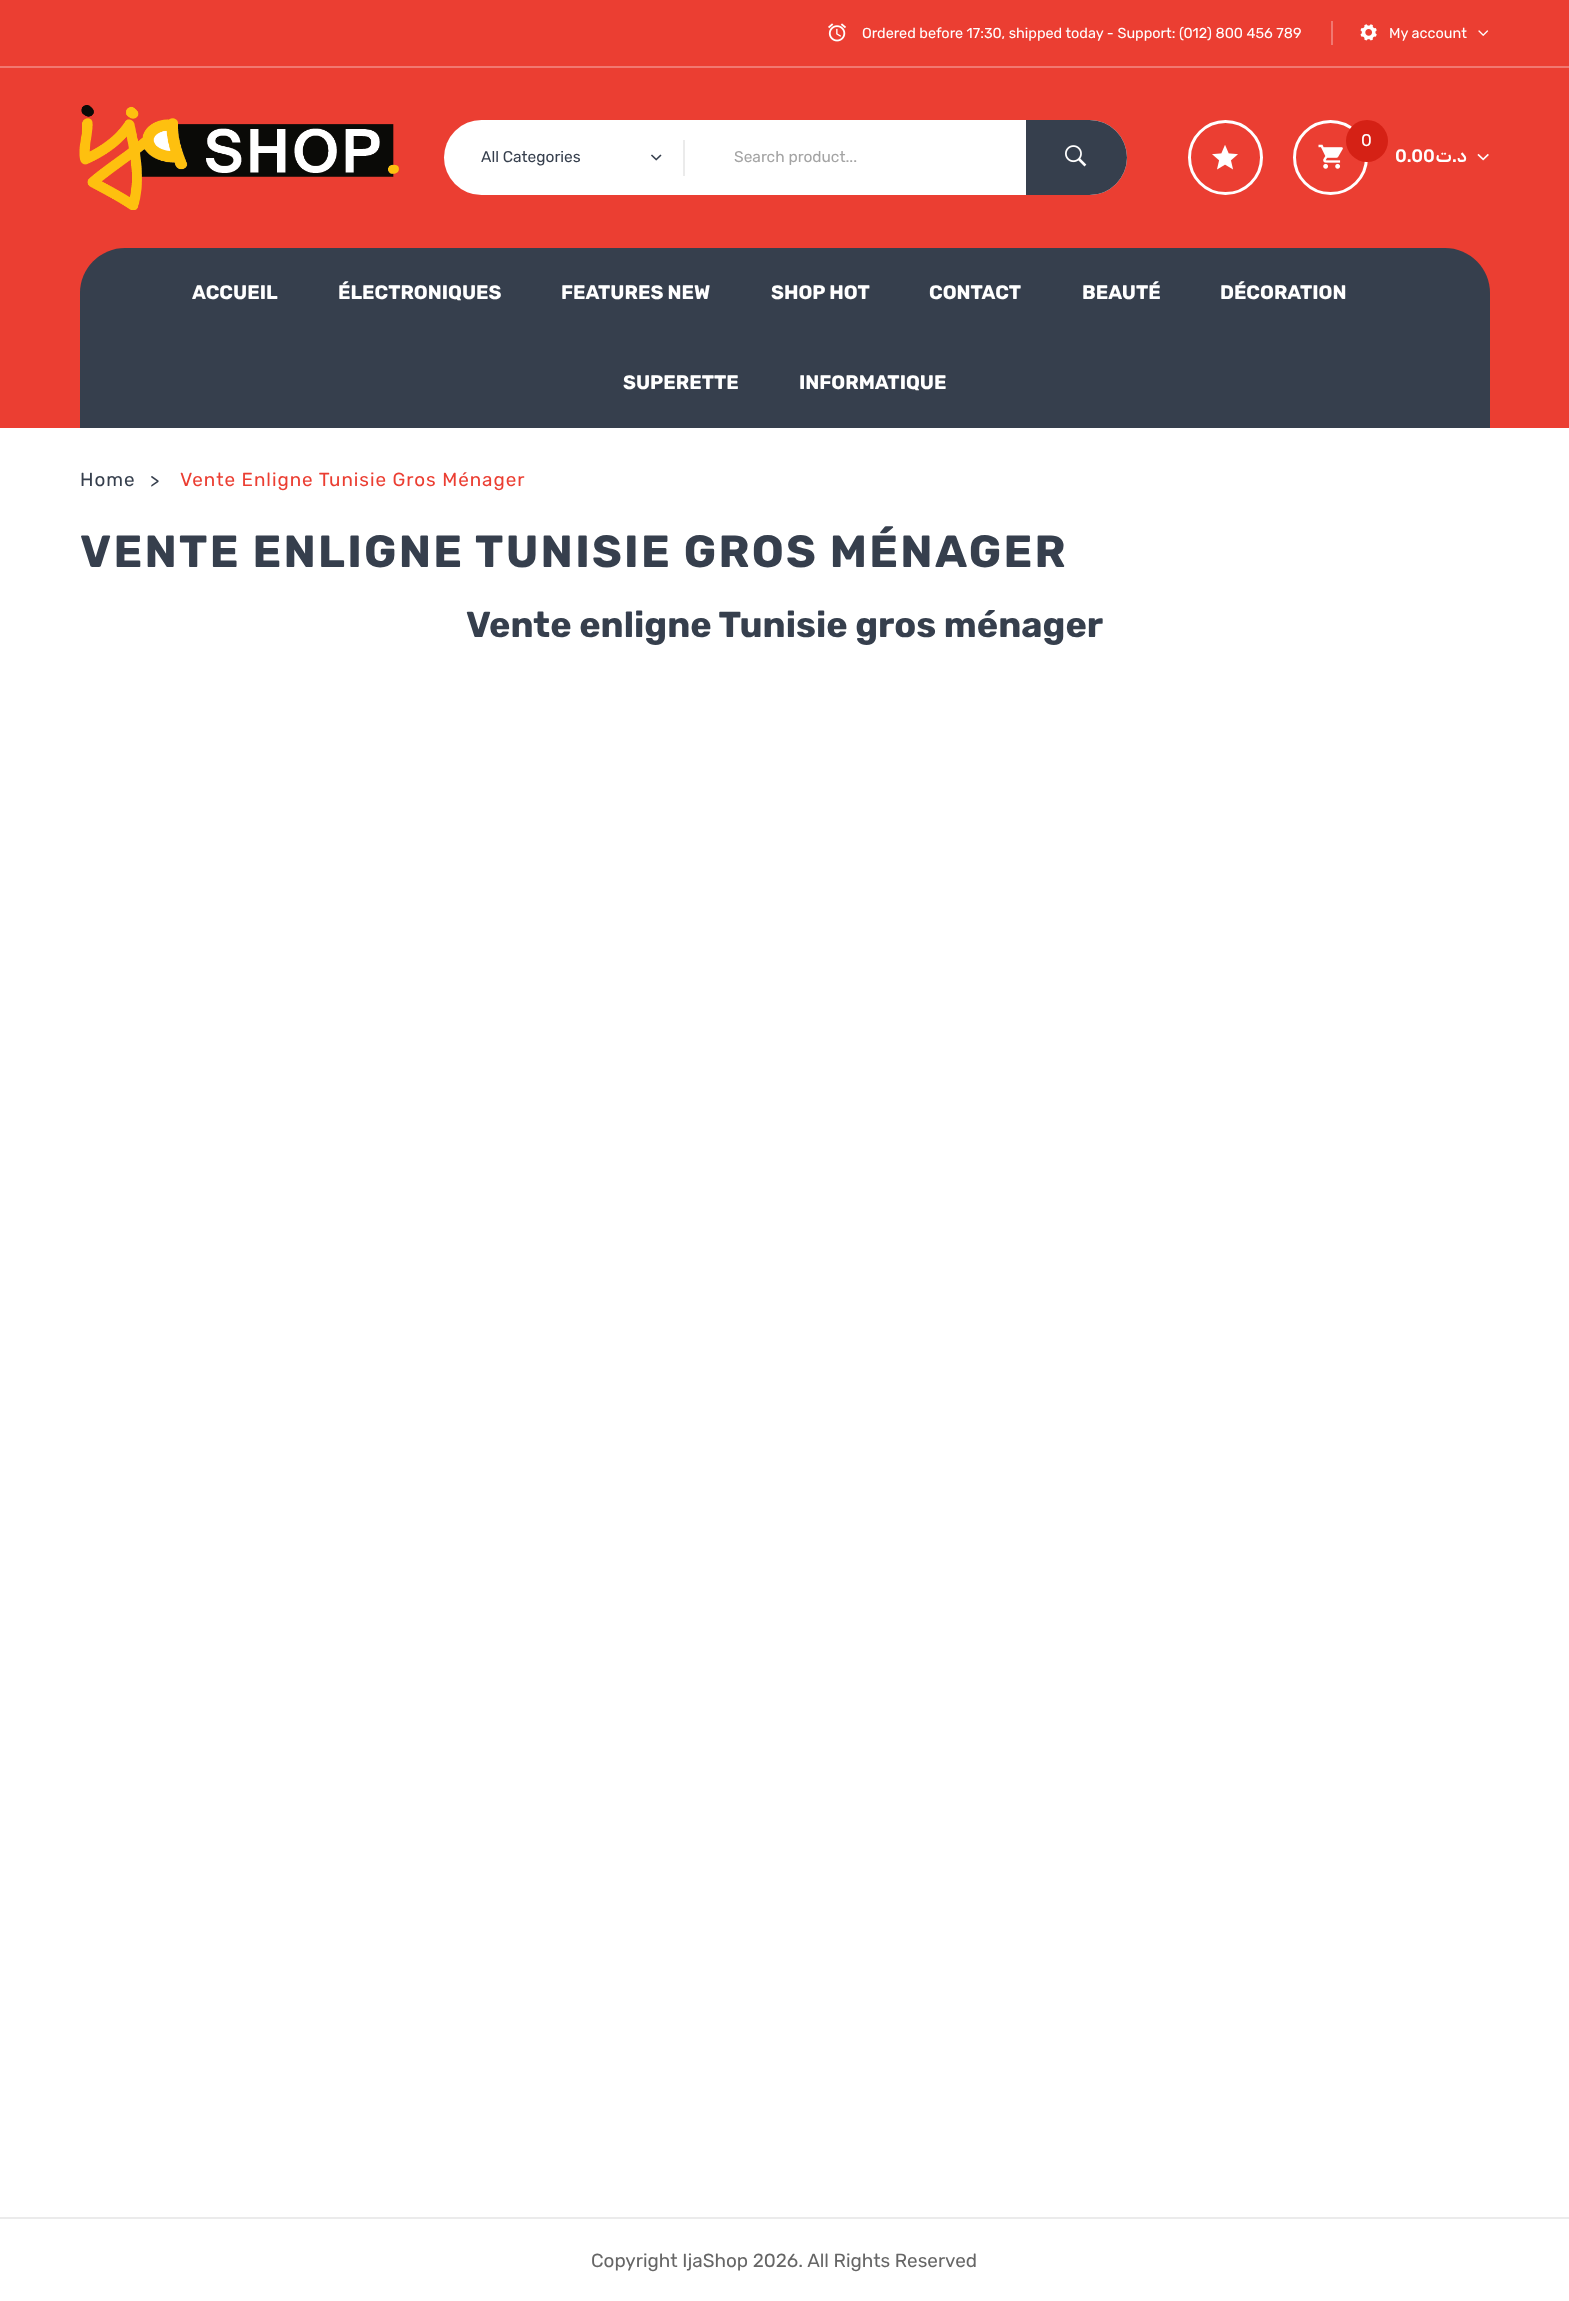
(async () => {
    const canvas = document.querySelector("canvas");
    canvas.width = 1569;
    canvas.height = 2301;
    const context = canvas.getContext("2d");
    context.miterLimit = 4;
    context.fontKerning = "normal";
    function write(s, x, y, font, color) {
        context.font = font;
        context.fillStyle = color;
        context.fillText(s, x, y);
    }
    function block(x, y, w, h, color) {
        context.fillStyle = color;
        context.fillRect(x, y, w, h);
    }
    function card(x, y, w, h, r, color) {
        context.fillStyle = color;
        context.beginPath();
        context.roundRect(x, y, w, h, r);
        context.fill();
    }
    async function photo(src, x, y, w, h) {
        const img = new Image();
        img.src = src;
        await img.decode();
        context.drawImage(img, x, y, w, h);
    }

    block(0, 0, 1569, 2301, "rgb(255, 255, 255)");
    block(0, 0, 1569, 428, "rgb(235, 62, 50)");
    block(0, 66, 1569, 2, "rgb(241, 120, 112)");
    await photo("media/1.png", 828, 23, 18, 19);
    write("Ordered before 17:30, shipped today - Support: (012) 800 456 789", 862, 38, "14.45px Rubik", "rgb(255, 255, 255)");
    block(1331, 21, 2, 24, "rgb(241, 120, 112)");
    await photo("media/2.png", 1360, 24, 17, 17);
    write("My account", 1389, 38, "14.45px Rubik", "rgb(255, 255, 255)");
    await photo("media/3.png", 1478, 30, 11, 6);
    await photo("media/4.png", 79, 105, 320, 105);
    card(444, 120, 683, 75, 37.5, "rgb(255, 255, 255)");
    block(683, 140, 2, 36, "rgb(235, 235, 235)");
    write("All Categories", 481, 162, "15.5px Rubik", "rgb(54, 63, 77)");
    await photo("media/5.png", 651, 154, 11, 7);
    write("Search product...", 734, 162, "15.5px Rubik", "rgb(164, 164, 164)");
    context.fillStyle = "rgb(54, 63, 77)";
    context.beginPath();
    context.roundRect(1026, 120, 101, 75, [0, 37.5, 37.5, 0]);
    context.fill();
    await photo("media/6.png", 1065, 145, 22, 22);
    context.beginPath();
    context.arc(1225.5, 157.5, 36, 0, Math.PI * 2);
    context.strokeStyle = "rgb(255, 255, 255)";
    context.lineWidth = 3;
    context.stroke();
    await photo("media/7.png", 1212, 145, 26, 25);
    context.beginPath();
    context.arc(1330.5, 157.5, 36, 0, Math.PI * 2);
    context.stroke();
    await photo("media/8.png", 1318, 144, 25, 25);
    context.fillStyle = "rgb(213, 33, 21)";
    context.beginPath();
    context.arc(1367, 141, 21, 0, Math.PI * 2);
    context.fill();
    write("0", 1361, 146, "17px Rubik", "rgb(255, 255, 255)");
    write("0.00", 1395, 162, "500 18px Rubik", "rgb(255, 255, 255)");
    context.direction = "rtl";
    write("د.ت", 1467, 162, "500 18px Rubik", "rgb(255, 255, 255)");
    await photo("media/9.png", 1477, 153, 12, 8);
    context.fillStyle = "rgb(54, 63, 77)";
    context.beginPath();
    context.roundRect(80, 248, 1410, 180, [45, 45, 0, 0]);
    context.fill();
    context.direction = "ltr";
    write("ACCUEIL", 192, 299, "bold 19.5px Rubik", "rgb(255, 255, 255)");
    write("ÉLECTRONIQUES", 338, 299, "bold 19.5px Rubik", "rgb(255, 255, 255)");
    write("FEATURES NEW", 561, 299, "bold 19.5px Rubik", "rgb(255, 255, 255)");
    write("SHOP HOT", 771, 299, "bold 19.5px Rubik", "rgb(255, 255, 255)");
    write("CONTACT", 929, 299, "bold 19.5px Rubik", "rgb(255, 255, 255)");
    write("BEAUTÉ", 1082, 299, "bold 19.5px Rubik", "rgb(255, 255, 255)");
    write("DÉCORATION", 1220, 299, "bold 19.5px Rubik", "rgb(255, 255, 255)");
    write("SUPERETTE", 623, 389, "bold 19.5px Rubik", "rgb(255, 255, 255)");
    write("INFORMATIQUE", 799, 389, "bold 19.5px Rubik", "rgb(255, 255, 255)");
    context.letterSpacing = "0.95px";
    write("Home", 80, 486, "18.9px Rubik", "rgb(54, 63, 77)");
    write(">", 150, 487, "18.9px Rubik", "rgb(54, 63, 77)");
    write("Vente Enligne Tunisie Gros Ménager", 180, 486, "18.9px Rubik", "rgb(235, 62, 50)");
    context.letterSpacing = "2.25px";
    write("VENTE ENLIGNE TUNISIE GROS MÉNAGER", 80, 567, "bold 45px Rubik", "rgb(54, 63, 77)");
    context.letterSpacing = "0px";
    write("Vente enligne Tunisie gros ménager", 466, 637, "bold 36px Rubik", "rgb(54, 63, 77)");
    block(0, 2217, 1569, 2, "rgb(235, 235, 235)");
    write("Copyright IjaShop 2026. All Rights Reserved", 591, 2267, "18.9px Rubik", "rgb(102, 102, 102)");
})();
